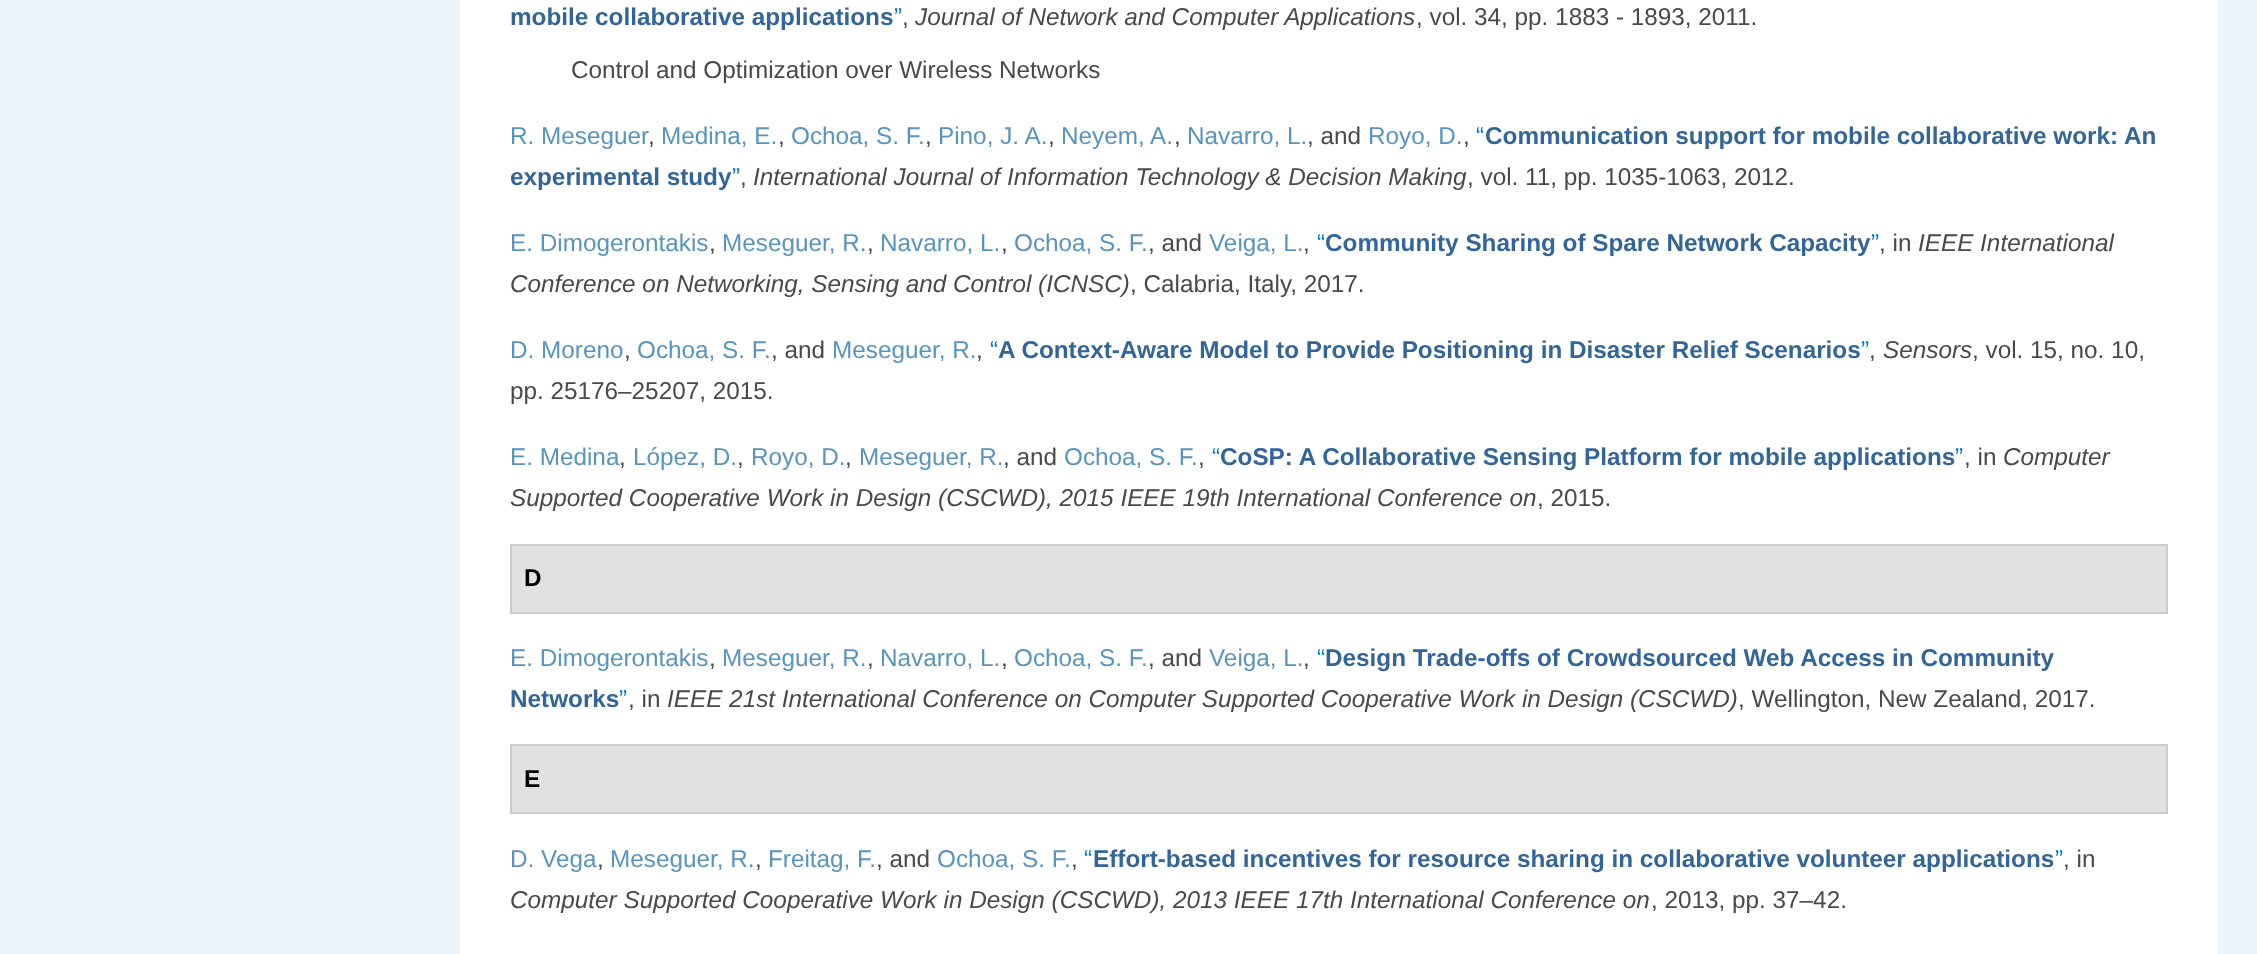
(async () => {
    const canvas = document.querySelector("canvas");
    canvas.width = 2257;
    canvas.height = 954;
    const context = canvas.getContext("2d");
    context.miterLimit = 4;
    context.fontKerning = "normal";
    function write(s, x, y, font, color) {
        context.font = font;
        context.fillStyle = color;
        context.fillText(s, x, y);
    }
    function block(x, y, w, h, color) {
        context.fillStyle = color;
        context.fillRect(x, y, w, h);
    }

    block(0, 0, 2257, 954, "rgb(237, 244, 249)");
    block(460, 0, 1758, 954, "rgb(255, 255, 255)");
    write("mobile collaborative applications", 510, 25, "bold 24.3px Liberation Sans", "rgb(51, 101, 153)");
    write("”", 894, 25, "24.3px Liberation Sans", "rgb(2, 122, 198)");
    write("Journal of Network and Computer Applications", 915, 25, "italic 24.3px Liberation Sans", "rgb(73, 73, 73)");
    write(", vol. 34, pp. 1883 - 1893, 2011.", 1416, 25, "24.3px Liberation Sans", "rgb(73, 73, 73)");
    write(",", 902, 25, "24.3px Liberation Sans", "rgb(73, 73, 73)");
    write("Control and Optimization over Wireless Networks", 571, 78, "24.3px Liberation Sans", "rgb(73, 73, 73)");
    write("R. Meseguer", 510, 144, "24.3px Liberation Sans", "rgb(88, 148, 190)");
    write("Medina, E.", 661, 144, "24.3px Liberation Sans", "rgb(88, 148, 190)");
    write("Ochoa, S. F.", 791, 144, "24.3px Liberation Sans", "rgb(88, 148, 190)");
    write("Pino, J. A.", 938, 144, "24.3px Liberation Sans", "rgb(88, 148, 190)");
    write("Neyem, A.", 1061, 144, "24.3px Liberation Sans", "rgb(88, 148, 190)");
    write("Navarro, L.", 1187, 144, "24.3px Liberation Sans", "rgb(88, 148, 190)");
    write(", and", 1307, 144, "24.3px Liberation Sans", "rgb(73, 73, 73)");
    write("Royo, D.", 1368, 144, "24.3px Liberation Sans", "rgb(88, 148, 190)");
    write("“", 1476, 144, "24.3px Liberation Sans", "rgb(2, 122, 198)");
    write("Communication support for mobile collaborative work: An", 1485, 144, "bold 24.3px Liberation Sans", "rgb(51, 101, 153)");
    write(",", 648, 144, "24.3px Liberation Sans", "rgb(73, 73, 73)");
    write(",", 778, 144, "24.3px Liberation Sans", "rgb(73, 73, 73)");
    write(",", 925, 144, "24.3px Liberation Sans", "rgb(73, 73, 73)");
    write(",", 1048, 144, "24.3px Liberation Sans", "rgb(73, 73, 73)");
    write(",", 1174, 144, "24.3px Liberation Sans", "rgb(73, 73, 73)");
    write(",", 1463, 144, "24.3px Liberation Sans", "rgb(73, 73, 73)");
    write("experimental study", 510, 185, "bold 24.3px Liberation Sans", "rgb(51, 101, 153)");
    write("”", 732, 185, "24.3px Liberation Sans", "rgb(2, 122, 198)");
    write("International Journal of Information Technology & Decision Making", 753, 185, "italic 24.3px Liberation Sans", "rgb(73, 73, 73)");
    write(", vol. 11, pp. 1035-1063, 2012.", 1467, 185, "24.3px Liberation Sans", "rgb(73, 73, 73)");
    write(",", 740, 185, "24.3px Liberation Sans", "rgb(73, 73, 73)");
    write("E. Dimogerontakis", 510, 251, "24.3px Liberation Sans", "rgb(88, 148, 190)");
    write("Meseguer, R.", 722, 251, "24.3px Liberation Sans", "rgb(88, 148, 190)");
    write("Navarro, L.", 880, 251, "24.3px Liberation Sans", "rgb(88, 148, 190)");
    write("Ochoa, S. F.", 1014, 251, "24.3px Liberation Sans", "rgb(88, 148, 190)");
    write(", and", 1148, 251, "24.3px Liberation Sans", "rgb(73, 73, 73)");
    write("Veiga, L.", 1209, 251, "24.3px Liberation Sans", "rgb(88, 148, 190)");
    write("“", 1317, 251, "24.3px Liberation Sans", "rgb(2, 122, 198)");
    write("Community Sharing of Spare Network Capacity", 1325, 251, "bold 24.3px Liberation Sans", "rgb(51, 101, 153)");
    write("”", 1871, 251, "24.3px Liberation Sans", "rgb(2, 122, 198)");
    write(", in", 1879, 251, "24.3px Liberation Sans", "rgb(73, 73, 73)");
    write("IEEE International", 1918, 251, "italic 24.3px Liberation Sans", "rgb(73, 73, 73)");
    write(",", 709, 251, "24.3px Liberation Sans", "rgb(73, 73, 73)");
    write(",", 867, 251, "24.3px Liberation Sans", "rgb(73, 73, 73)");
    write(",", 1001, 251, "24.3px Liberation Sans", "rgb(73, 73, 73)");
    write(",", 1303, 251, "24.3px Liberation Sans", "rgb(73, 73, 73)");
    write("Conference on Networking, Sensing and Control (ICNSC)", 510, 292, "italic 24.3px Liberation Sans", "rgb(73, 73, 73)");
    write(", Calabria, Italy, 2017.", 1130, 292, "24.3px Liberation Sans", "rgb(73, 73, 73)");
    write("D. Moreno", 510, 358, "24.3px Liberation Sans", "rgb(88, 148, 190)");
    write(",", 624, 358, "24.3px Liberation Sans", "rgb(73, 73, 73)");
    write("Ochoa, S. F.", 637, 358, "24.3px Liberation Sans", "rgb(88, 148, 190)");
    write(", and", 771, 358, "24.3px Liberation Sans", "rgb(73, 73, 73)");
    write("Meseguer, R.", 832, 358, "24.3px Liberation Sans", "rgb(88, 148, 190)");
    write(",", 976, 358, "24.3px Liberation Sans", "rgb(73, 73, 73)");
    write("“", 990, 358, "24.3px Liberation Sans", "rgb(2, 122, 198)");
    write("A Context-Aware Model to Provide Positioning in Disaster Relief Scenarios", 998, 358, "bold 24.3px Liberation Sans", "rgb(51, 101, 153)");
    write("”", 1861, 358, "24.3px Liberation Sans", "rgb(2, 122, 198)");
    write(",", 1869, 358, "24.3px Liberation Sans", "rgb(73, 73, 73)");
    write("Sensors", 1883, 358, "italic 24.3px Liberation Sans", "rgb(73, 73, 73)");
    write(", vol. 15, no. 10,", 1972, 358, "24.3px Liberation Sans", "rgb(73, 73, 73)");
    write("pp. 25176–25207, 2015.", 510, 399, "24.3px Liberation Sans", "rgb(73, 73, 73)");
    write("E. Medina", 510, 465, "24.3px Liberation Sans", "rgb(88, 148, 190)");
    write(",", 619, 465, "24.3px Liberation Sans", "rgb(73, 73, 73)");
    write("López, D.", 633, 465, "24.3px Liberation Sans", "rgb(88, 148, 190)");
    write(",", 737, 465, "24.3px Liberation Sans", "rgb(73, 73, 73)");
    write("Royo, D.", 751, 465, "24.3px Liberation Sans", "rgb(88, 148, 190)");
    write(",", 845, 465, "24.3px Liberation Sans", "rgb(73, 73, 73)");
    write("Meseguer, R.", 859, 465, "24.3px Liberation Sans", "rgb(88, 148, 190)");
    write(", and", 1003, 465, "24.3px Liberation Sans", "rgb(73, 73, 73)");
    write("Ochoa, S. F.", 1064, 465, "24.3px Liberation Sans", "rgb(88, 148, 190)");
    write(",", 1198, 465, "24.3px Liberation Sans", "rgb(73, 73, 73)");
    write("“", 1212, 465, "24.3px Liberation Sans", "rgb(2, 122, 198)");
    write("CoSP: A Collaborative Sensing Platform for mobile applications", 1220, 465, "bold 24.3px Liberation Sans", "rgb(51, 101, 153)");
    write("”", 1955, 465, "24.3px Liberation Sans", "rgb(2, 122, 198)");
    write(", in", 1964, 465, "24.3px Liberation Sans", "rgb(73, 73, 73)");
    write("Computer", 2003, 465, "italic 24.3px Liberation Sans", "rgb(73, 73, 73)");
    write("Supported Cooperative Work in Design (CSCWD), 2015 IEEE 19th International Conference on", 510, 506, "italic 24.3px Liberation Sans", "rgb(73, 73, 73)");
    write(", 2015.", 1537, 506, "24.3px Liberation Sans", "rgb(73, 73, 73)");
    context.fillStyle = "rgb(225, 225, 225)";
    context.beginPath();
    context.rect(511, 545, 1656, 68);
    context.fill();
    context.strokeStyle = "rgb(204, 204, 204)";
    context.lineWidth = 2;
    context.stroke();
    write("D", 524, 586, "bold 24.3px Liberation Sans", "rgb(0, 0, 0)");
    write("E. Dimogerontakis", 510, 666, "24.3px Liberation Sans", "rgb(88, 148, 190)");
    write("Meseguer, R.", 722, 666, "24.3px Liberation Sans", "rgb(88, 148, 190)");
    write("Navarro, L.", 880, 666, "24.3px Liberation Sans", "rgb(88, 148, 190)");
    write("Ochoa, S. F.", 1014, 666, "24.3px Liberation Sans", "rgb(88, 148, 190)");
    write(", and", 1148, 666, "24.3px Liberation Sans", "rgb(73, 73, 73)");
    write("Veiga, L.", 1209, 666, "24.3px Liberation Sans", "rgb(88, 148, 190)");
    write("“", 1317, 666, "24.3px Liberation Sans", "rgb(2, 122, 198)");
    write("Design Trade-offs of Crowdsourced Web Access in Community", 1325, 666, "bold 24.3px Liberation Sans", "rgb(51, 101, 153)");
    write(",", 709, 666, "24.3px Liberation Sans", "rgb(73, 73, 73)");
    write(",", 867, 666, "24.3px Liberation Sans", "rgb(73, 73, 73)");
    write(",", 1001, 666, "24.3px Liberation Sans", "rgb(73, 73, 73)");
    write(",", 1303, 666, "24.3px Liberation Sans", "rgb(73, 73, 73)");
    write("Networks", 510, 707, "bold 24.3px Liberation Sans", "rgb(51, 101, 153)");
    write("”", 619, 707, "24.3px Liberation Sans", "rgb(2, 122, 198)");
    write(", in", 628, 707, "24.3px Liberation Sans", "rgb(73, 73, 73)");
    write("IEEE 21st International Conference on Computer Supported Cooperative Work in Design (CSCWD)", 667, 707, "italic 24.3px Liberation Sans", "rgb(73, 73, 73)");
    write(", Wellington, New Zealand, 2017.", 1738, 707, "24.3px Liberation Sans", "rgb(73, 73, 73)");
    context.fillStyle = "rgb(225, 225, 225)";
    context.beginPath();
    context.rect(511, 745, 1656, 68);
    context.fill();
    context.stroke();
    write("E", 524, 787, "bold 24.3px Liberation Sans", "rgb(0, 0, 0)");
    write("D. Vega", 510, 867, "24.3px Liberation Sans", "rgb(88, 148, 190)");
    write("Meseguer, R.", 610, 867, "24.3px Liberation Sans", "rgb(88, 148, 190)");
    write("Freitag, F.", 768, 867, "24.3px Liberation Sans", "rgb(88, 148, 190)");
    write(", and", 876, 867, "24.3px Liberation Sans", "rgb(73, 73, 73)");
    write("Ochoa, S. F.", 937, 867, "24.3px Liberation Sans", "rgb(88, 148, 190)");
    write("“", 1084, 867, "24.3px Liberation Sans", "rgb(2, 122, 198)");
    write("Effort-based incentives for resource sharing in collaborative volunteer applications", 1093, 867, "bold 24.3px Liberation Sans", "rgb(51, 101, 153)");
    write("”", 2055, 867, "24.3px Liberation Sans", "rgb(2, 122, 198)");
    write(", in", 2063, 867, "24.3px Liberation Sans", "rgb(73, 73, 73)");
    write(",", 597, 867, "24.3px Liberation Sans", "rgb(73, 73, 73)");
    write(",", 755, 867, "24.3px Liberation Sans", "rgb(73, 73, 73)");
    write(",", 1071, 867, "24.3px Liberation Sans", "rgb(73, 73, 73)");
    write("Computer Supported Cooperative Work in Design (CSCWD), 2013 IEEE 17th International Conference on", 510, 908, "italic 24.3px Liberation Sans", "rgb(73, 73, 73)");
    write(", 2013, pp. 37–42.", 1651, 908, "24.3px Liberation Sans", "rgb(73, 73, 73)");
})();
